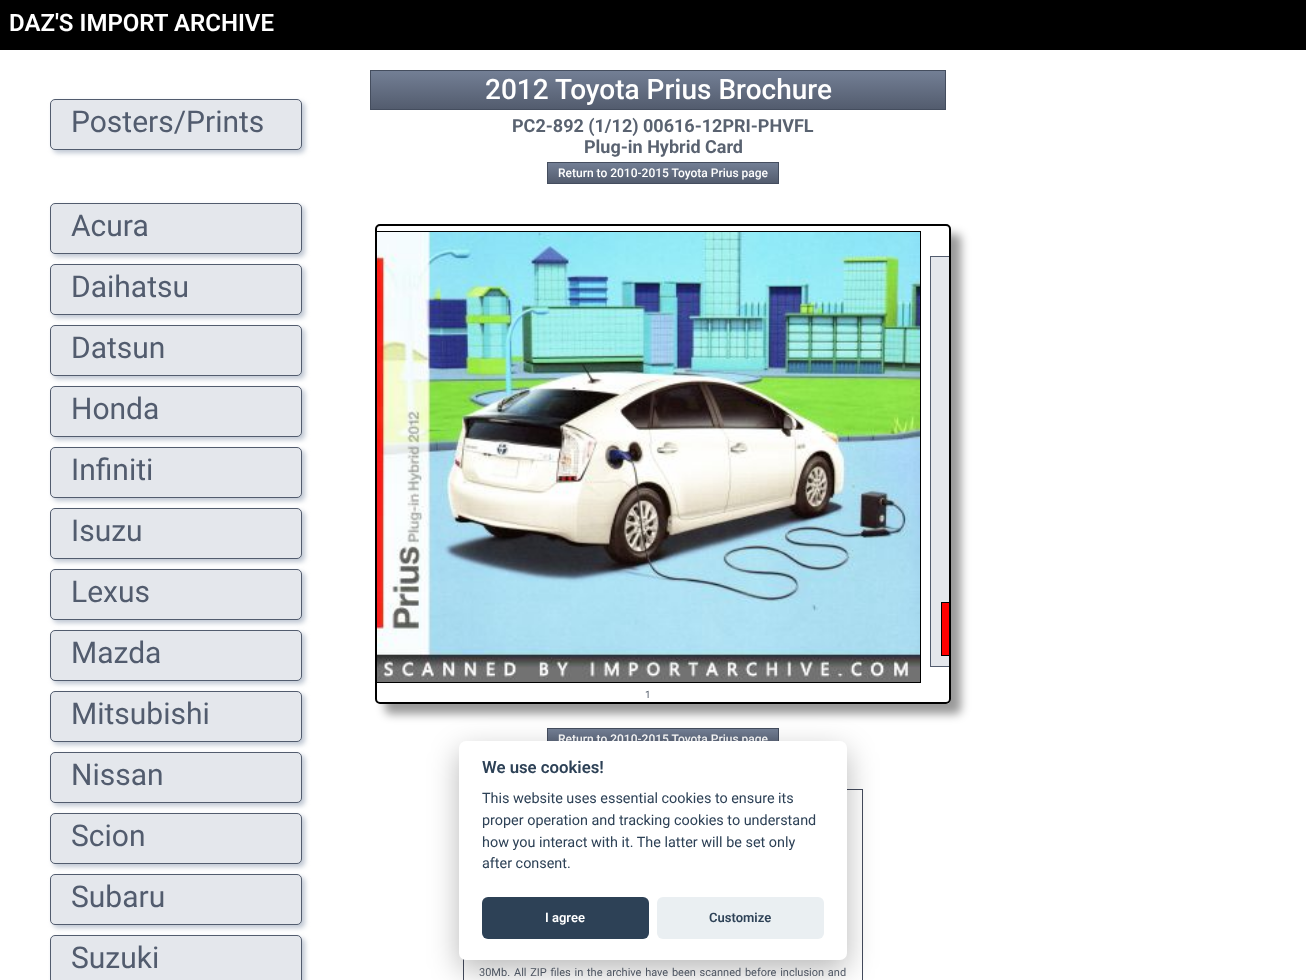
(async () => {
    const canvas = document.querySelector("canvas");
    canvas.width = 1306;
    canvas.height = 980;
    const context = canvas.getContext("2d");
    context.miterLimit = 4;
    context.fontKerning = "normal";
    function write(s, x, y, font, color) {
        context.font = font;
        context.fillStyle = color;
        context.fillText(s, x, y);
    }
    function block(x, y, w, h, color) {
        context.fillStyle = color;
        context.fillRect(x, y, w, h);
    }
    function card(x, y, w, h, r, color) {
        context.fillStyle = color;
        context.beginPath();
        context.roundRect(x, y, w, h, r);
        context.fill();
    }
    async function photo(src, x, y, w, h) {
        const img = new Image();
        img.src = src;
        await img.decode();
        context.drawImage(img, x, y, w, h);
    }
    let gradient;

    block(0, 0, 1306, 980, "rgb(255, 255, 255)");
    block(0, 0, 1306, 50, "rgb(0, 0, 0)");
    write("DAZ'S IMPORT ARCHIVE", 9, 31, "600 24px Roboto", "rgb(255, 255, 255)");
    context.fillStyle = "rgb(191, 199, 211)";
    context.filter = "blur(2.5px)";
    context.beginPath();
    context.roundRect(53, 102, 252, 51, 5);
    context.fill();
    context.filter = "none";
    context.fillStyle = "rgb(228, 231, 236)";
    context.beginPath();
    context.roundRect(50.5, 99.5, 251, 50, 4.5);
    context.fill();
    context.strokeStyle = "rgb(82, 92, 110)";
    context.stroke();
    write("Posters/Prints", 71, 132, "30px Roboto", "rgb(82, 92, 110)");
    context.fillStyle = "rgb(191, 199, 211)";
    context.filter = "blur(2.5px)";
    context.beginPath();
    context.roundRect(53, 206, 252, 51, 5);
    context.fill();
    context.filter = "none";
    context.fillStyle = "rgb(228, 231, 236)";
    context.beginPath();
    context.roundRect(50.5, 203.5, 251, 50, 4.5);
    context.fill();
    context.stroke();
    write("Acura", 71, 236, "30px Roboto", "rgb(82, 92, 110)");
    context.fillStyle = "rgb(191, 199, 211)";
    context.filter = "blur(2.5px)";
    context.beginPath();
    context.roundRect(53, 267, 252, 51, 5);
    context.fill();
    context.filter = "none";
    context.fillStyle = "rgb(228, 231, 236)";
    context.beginPath();
    context.roundRect(50.5, 264.5, 251, 50, 4.5);
    context.fill();
    context.stroke();
    write("Daihatsu", 71, 297, "30px Roboto", "rgb(82, 92, 110)");
    context.fillStyle = "rgb(191, 199, 211)";
    context.filter = "blur(2.5px)";
    context.beginPath();
    context.roundRect(53, 328, 252, 51, 5);
    context.fill();
    context.filter = "none";
    context.fillStyle = "rgb(228, 231, 236)";
    context.beginPath();
    context.roundRect(50.5, 325.5, 251, 50, 4.5);
    context.fill();
    context.stroke();
    write("Datsun", 71, 358, "30px Roboto", "rgb(82, 92, 110)");
    context.fillStyle = "rgb(191, 199, 211)";
    context.filter = "blur(2.5px)";
    context.beginPath();
    context.roundRect(53, 389, 252, 51, 5);
    context.fill();
    context.filter = "none";
    context.fillStyle = "rgb(228, 231, 236)";
    context.beginPath();
    context.roundRect(50.5, 386.5, 251, 50, 4.5);
    context.fill();
    context.stroke();
    write("Honda", 71, 419, "30px Roboto", "rgb(82, 92, 110)");
    context.fillStyle = "rgb(191, 199, 211)";
    context.filter = "blur(2.5px)";
    context.beginPath();
    context.roundRect(53, 450, 252, 51, 5);
    context.fill();
    context.filter = "none";
    context.fillStyle = "rgb(228, 231, 236)";
    context.beginPath();
    context.roundRect(50.5, 447.5, 251, 50, 4.5);
    context.fill();
    context.stroke();
    write("Infiniti", 71, 480, "30px Roboto", "rgb(82, 92, 110)");
    context.fillStyle = "rgb(191, 199, 211)";
    context.filter = "blur(2.5px)";
    context.beginPath();
    context.roundRect(53, 511, 252, 51, 5);
    context.fill();
    context.filter = "none";
    context.fillStyle = "rgb(228, 231, 236)";
    context.beginPath();
    context.roundRect(50.5, 508.5, 251, 50, 4.5);
    context.fill();
    context.stroke();
    write("Isuzu", 71, 541, "30px Roboto", "rgb(82, 92, 110)");
    context.fillStyle = "rgb(191, 199, 211)";
    context.filter = "blur(2.5px)";
    context.beginPath();
    context.roundRect(53, 572, 252, 51, 5);
    context.fill();
    context.filter = "none";
    context.fillStyle = "rgb(228, 231, 236)";
    context.beginPath();
    context.roundRect(50.5, 569.5, 251, 50, 4.5);
    context.fill();
    context.stroke();
    write("Lexus", 71, 602, "30px Roboto", "rgb(82, 92, 110)");
    context.fillStyle = "rgb(191, 199, 211)";
    context.filter = "blur(2.5px)";
    context.beginPath();
    context.roundRect(53, 633, 252, 51, 5);
    context.fill();
    context.filter = "none";
    context.fillStyle = "rgb(228, 231, 236)";
    context.beginPath();
    context.roundRect(50.5, 630.5, 251, 50, 4.5);
    context.fill();
    context.stroke();
    write("Mazda", 71, 663, "30px Roboto", "rgb(82, 92, 110)");
    context.fillStyle = "rgb(191, 199, 211)";
    context.filter = "blur(2.5px)";
    context.beginPath();
    context.roundRect(53, 694, 252, 51, 5);
    context.fill();
    context.filter = "none";
    context.fillStyle = "rgb(228, 231, 236)";
    context.beginPath();
    context.roundRect(50.5, 691.5, 251, 50, 4.5);
    context.fill();
    context.stroke();
    write("Mitsubishi", 71, 724, "30px Roboto", "rgb(82, 92, 110)");
    context.fillStyle = "rgb(191, 199, 211)";
    context.filter = "blur(2.5px)";
    context.beginPath();
    context.roundRect(53, 755, 252, 51, 5);
    context.fill();
    context.filter = "none";
    context.fillStyle = "rgb(228, 231, 236)";
    context.beginPath();
    context.roundRect(50.5, 752.5, 251, 50, 4.5);
    context.fill();
    context.stroke();
    write("Nissan", 71, 785, "30px Roboto", "rgb(82, 92, 110)");
    context.fillStyle = "rgb(191, 199, 211)";
    context.filter = "blur(2.5px)";
    context.beginPath();
    context.roundRect(53, 816, 252, 51, 5);
    context.fill();
    context.filter = "none";
    context.fillStyle = "rgb(228, 231, 236)";
    context.beginPath();
    context.roundRect(50.5, 813.5, 251, 50, 4.5);
    context.fill();
    context.stroke();
    write("Scion", 71, 846, "30px Roboto", "rgb(82, 92, 110)");
    context.fillStyle = "rgb(191, 199, 211)";
    context.filter = "blur(2.5px)";
    context.beginPath();
    context.roundRect(53, 877, 252, 51, 5);
    context.fill();
    context.filter = "none";
    context.fillStyle = "rgb(228, 231, 236)";
    context.beginPath();
    context.roundRect(50.5, 874.5, 251, 50, 4.5);
    context.fill();
    context.stroke();
    write("Subaru", 71, 907, "30px Roboto", "rgb(82, 92, 110)");
    context.fillStyle = "rgb(191, 199, 211)";
    context.filter = "blur(2.5px)";
    context.beginPath();
    context.roundRect(53, 938, 252, 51, 5);
    context.fill();
    context.filter = "none";
    context.fillStyle = "rgb(228, 231, 236)";
    context.beginPath();
    context.roundRect(50.5, 935.5, 251, 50, 4.5);
    context.fill();
    context.stroke();
    write("Suzuki", 71, 968, "30px Roboto", "rgb(82, 92, 110)");
    gradient = context.createLinearGradient(658, 71, 658, 109);
    gradient.addColorStop(0, "rgb(115, 127, 149)");
    gradient.addColorStop(1, "rgb(83, 92, 110)");
    context.fillStyle = gradient;
    context.fillRect(371, 71, 574, 38);
    context.strokeStyle = "rgb(68, 77, 94)";
    context.strokeRect(370.5, 70.5, 575, 39);
    write("2012 Toyota Prius Brochure", 485, 99, "500 28px Roboto", "rgb(255, 255, 255)");
    write("PC2-892 (1/12) 00616-12PRI-PHVFL", 512, 132, "bold 18px Roboto", "rgb(89, 98, 112)");
    write("Plug-in Hybrid Card", 584, 153, "bold 18px Roboto", "rgb(89, 98, 112)");
    gradient = context.createLinearGradient(663, 163, 663, 183);
    gradient.addColorStop(0, "rgb(115, 127, 149)");
    gradient.addColorStop(1, "rgb(83, 92, 110)");
    context.fillStyle = gradient;
    context.fillRect(548, 163, 230, 20);
    context.strokeRect(547.5, 162.5, 231, 21);
    write("Return to 2010-2015 Toyota Prius page", 558, 177, "500 12px Roboto", "rgb(255, 255, 255)");
    gradient = context.createLinearGradient(663, 729, 663, 749);
    gradient.addColorStop(0, "rgb(115, 127, 149)");
    gradient.addColorStop(1, "rgb(83, 92, 110)");
    context.fillStyle = gradient;
    context.fillRect(548, 729, 230, 12);
    context.strokeRect(547.5, 728.5, 231, 21);
    context.save();
    context.beginPath();
    context.moveTo(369, 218);
    context.lineTo(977, 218);
    context.lineTo(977, 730);
    context.lineTo(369, 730);
    context.closePath();
    context.moveTo(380, 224);
    context.lineTo(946, 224);
    context.bezierCurveTo(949, 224, 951, 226, 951, 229);
    context.lineTo(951, 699);
    context.bezierCurveTo(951, 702, 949, 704, 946, 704);
    context.lineTo(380, 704);
    context.bezierCurveTo(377, 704, 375, 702, 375, 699);
    context.lineTo(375, 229);
    context.bezierCurveTo(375, 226, 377, 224, 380, 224);
    context.closePath();
    context.clip("evenodd");
    context.fillStyle = "rgba(0, 0, 0, 0.4)";
    context.filter = "blur(5px)";
    context.beginPath();
    context.roundRect(385, 234, 576, 480, 5);
    context.fill();
    context.filter = "none";
    context.restore();
    context.beginPath();
    context.roundRect(376, 225, 574, 478, 4);
    context.strokeStyle = "rgb(0, 0, 0)";
    context.lineWidth = 2;
    context.stroke();
    block(931, 257, 18, 409, "rgb(228, 231, 236)");
    context.fillStyle = "rgb(82, 92, 110)";
    context.beginPath();
    context.moveTo(930, 256);
    context.lineTo(930, 667);
    context.lineTo(949, 667);
    context.lineTo(949, 666);
    context.lineTo(931, 666);
    context.lineTo(931, 257);
    context.lineTo(949, 257);
    context.lineTo(949, 256);
    context.closePath();
    context.fill();
    block(942, 602, 7, 54, "rgb(255, 0, 0)");
    context.fillStyle = "rgb(0, 0, 0)";
    context.beginPath();
    context.moveTo(941, 602);
    context.lineTo(941, 656);
    context.lineTo(949, 656);
    context.lineTo(949, 655);
    context.lineTo(942, 655);
    context.lineTo(942, 603);
    context.lineTo(949, 603);
    context.lineTo(949, 602);
    context.closePath();
    context.fill();
    context.beginPath();
    context.moveTo(377, 683);
    context.lineTo(921, 683);
    context.lineTo(921, 231);
    context.lineTo(377, 231);
    context.lineTo(377, 232);
    context.lineTo(920, 232);
    context.lineTo(920, 682);
    context.lineTo(377, 682);
    context.closePath();
    context.fill();
    await photo("media/1.png", 377, 232, 543, 450);
    write("1", 645, 698, "10px Roboto", "rgb(89, 98, 112)");
    write("Return to 2010-2015 Toyota Prius page", 558, 743, "500 12px Roboto", "rgb(255, 255, 255)");
    context.strokeStyle = "rgb(68, 75, 93)";
    context.lineWidth = 1;
    context.strokeRect(463.5, 789.5, 399, 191);
    write("30Mb.", 479, 976, "11px Roboto", "rgb(89, 98, 112)");
    context.wordSpacing = "1px";
    write("All ZIP files in the archive have been scanned before inclusion and", 514, 976, "11px Roboto", "rgb(89, 98, 112)");
    context.fillStyle = "rgba(2, 2, 3, 0.28)";
    context.filter = "blur(15px)";
    context.beginPath();
    context.roundRect(459, 751, 388, 219, 7);
    context.fill();
    context.filter = "none";
    card(459, 741, 388, 219, 7, "rgb(255, 255, 255)");
    context.wordSpacing = "0px";
    write("We use cookies!", 482, 773, "600 16.75px Roboto", "rgb(45, 65, 86)");
    write("This website uses essential cookies to ensure its", 482, 803, "14.4px Roboto", "rgb(45, 65, 86)");
    write("proper operation and tracking cookies to understand", 482, 825, "14.4px Roboto", "rgb(45, 65, 86)");
    write("how you interact with it. The latter will be set only", 482, 847, "14.4px Roboto", "rgb(45, 65, 86)");
    write("after consent.", 482, 868, "14.4px Roboto", "rgb(45, 65, 86)");
    card(482, 897, 167, 42, 6, "rgb(45, 65, 86)");
    write("I agree", 545, 922, "600 13px Roboto", "rgb(255, 255, 255)");
    card(657, 897, 167, 42, 6, "rgb(234, 239, 242)");
    write("Customize", 709, 922, "600 13px Roboto", "rgb(45, 65, 86)");
})();
